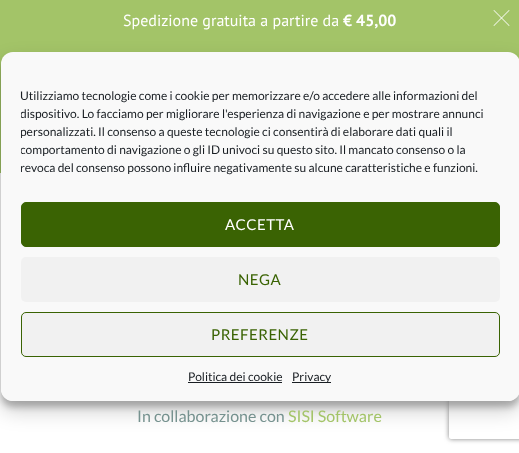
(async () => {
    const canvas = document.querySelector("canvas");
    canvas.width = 519;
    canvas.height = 453;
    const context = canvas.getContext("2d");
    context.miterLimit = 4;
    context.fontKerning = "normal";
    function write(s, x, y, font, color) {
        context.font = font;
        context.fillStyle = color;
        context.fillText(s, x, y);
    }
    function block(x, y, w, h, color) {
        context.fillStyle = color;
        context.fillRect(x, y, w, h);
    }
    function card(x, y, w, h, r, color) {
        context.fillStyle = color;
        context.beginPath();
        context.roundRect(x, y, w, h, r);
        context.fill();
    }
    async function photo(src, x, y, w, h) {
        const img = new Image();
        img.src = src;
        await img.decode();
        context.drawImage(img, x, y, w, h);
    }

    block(0, 0, 519, 453, "rgb(255, 255, 255)");
    block(0, 0, 519, 173, "rgb(163, 196, 104)");
    write("Spedizione gratuita a partire da", 123, 26, "16px PT Sans", "rgb(255, 255, 255)");
    write("€ 45,00", 343, 26, "bold 16px PT Sans", "rgb(255, 255, 255)");
    await photo("media/1.png", 493, 10, 17, 16);
    context.save();
    context.beginPath();
    context.moveTo(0, 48);
    context.lineTo(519, 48);
    context.lineTo(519, 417);
    context.lineTo(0, 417);
    context.closePath();
    context.moveTo(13, 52);
    context.lineTo(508, 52);
    context.bezierCurveTo(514.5, 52, 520, 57.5, 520, 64);
    context.lineTo(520, 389);
    context.bezierCurveTo(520, 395.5, 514.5, 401, 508, 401);
    context.lineTo(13, 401);
    context.bezierCurveTo(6.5, 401, 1, 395.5, 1, 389);
    context.lineTo(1, 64);
    context.bezierCurveTo(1, 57.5, 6.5, 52, 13, 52);
    context.closePath();
    context.clip("evenodd");
    context.fillStyle = "rgba(0, 0, 0, 0.23)";
    context.filter = "blur(3px)";
    context.beginPath();
    context.roundRect(1, 58, 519, 349, 12);
    context.fill();
    context.filter = "none";
    context.restore();
    context.save();
    context.beginPath();
    context.moveTo(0, 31);
    context.lineTo(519, 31);
    context.lineTo(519, 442);
    context.lineTo(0, 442);
    context.closePath();
    context.moveTo(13, 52);
    context.lineTo(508, 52);
    context.bezierCurveTo(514.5, 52, 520, 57.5, 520, 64);
    context.lineTo(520, 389);
    context.bezierCurveTo(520, 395.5, 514.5, 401, 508, 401);
    context.lineTo(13, 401);
    context.bezierCurveTo(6.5, 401, 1, 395.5, 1, 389);
    context.lineTo(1, 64);
    context.bezierCurveTo(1, 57.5, 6.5, 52, 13, 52);
    context.closePath();
    context.clip("evenodd");
    context.fillStyle = "rgba(0, 0, 0, 0.19)";
    context.filter = "blur(10px)";
    context.beginPath();
    context.roundRect(1, 62, 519, 349, 12);
    context.fill();
    context.filter = "none";
    context.restore();
    context.save();
    context.beginPath();
    context.moveTo(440, 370);
    context.lineTo(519, 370);
    context.lineTo(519, 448);
    context.lineTo(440, 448);
    context.closePath();
    context.moveTo(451, 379);
    context.lineTo(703, 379);
    context.bezierCurveTo(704, 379, 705, 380, 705, 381);
    context.lineTo(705, 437);
    context.bezierCurveTo(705, 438, 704, 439, 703, 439);
    context.lineTo(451, 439);
    context.bezierCurveTo(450, 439, 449, 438, 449, 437);
    context.lineTo(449, 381);
    context.bezierCurveTo(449, 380, 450, 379, 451, 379);
    context.closePath();
    context.clip("evenodd");
    context.fillStyle = "rgb(128, 128, 128)";
    context.filter = "blur(2.5px)";
    context.beginPath();
    context.roundRect(449, 379, 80, 60, 2);
    context.fill();
    context.filter = "none";
    context.restore();
    card(1, 52, 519, 349, 12, "rgb(249, 249, 249)");
    write("Utilizziamo tecnologie come i cookie per memorizzare e/o accedere alle informazioni del", 20, 100, "12px Lato", "rgb(25, 30, 35)");
    context.save();
    context.beginPath();
    context.rect(21, 87, 479, 95);
    context.clip();
    write("dispositivo. Lo facciamo per migliorare l'esperienza di navigazione e per mostrare annunci", 20, 118, "12px Lato", "rgb(25, 30, 35)");
    write("personalizzati. Il consenso a queste tecnologie ci consentirà di elaborare dati quali il", 20, 136, "12px Lato", "rgb(25, 30, 35)");
    write("comportamento di navigazione o gli ID univoci su questo sito. Il mancato consenso o la", 20, 154, "12px Lato", "rgb(25, 30, 35)");
    write("revoca del consenso possono influire negativamente su alcune caratteristiche e funzioni.", 20, 172, "12px Lato", "rgb(25, 30, 35)");
    context.restore();
    context.fillStyle = "rgb(58, 99, 3)";
    context.beginPath();
    context.roundRect(21.5, 202.5, 478, 44, 4.5);
    context.fill();
    context.strokeStyle = "rgb(58, 99, 3)";
    context.stroke();
    context.letterSpacing = "0.5px";
    write("ACCETTA", 225, 230, "15px Lato", "rgb(255, 255, 255)");
    card(21, 257, 479, 45, 5, "rgb(241, 241, 241)");
    write("NEGA", 238, 285, "15px Lato", "rgb(58, 99, 3)");
    context.fillStyle = "rgb(241, 241, 241)";
    context.beginPath();
    context.roundRect(21.5, 312.5, 478, 44, 4.5);
    context.fill();
    context.stroke();
    write("PREFERENZE", 211, 340, "15px Lato", "rgb(58, 99, 3)");
    context.letterSpacing = "0px";
    write("Politica dei cookie", 188, 381, "12px Lato", "rgb(25, 30, 35)");
    block(188, 382, 94, 1, "rgb(25, 30, 35)");
    block(292, 382, 39, 1, "rgb(25, 30, 35)");
    write("Privacy", 292, 381, "12px Lato", "rgb(25, 30, 35)");
    write("In collaborazione con", 137, 422, "16px Lato", "rgb(118, 146, 143)");
    write("SISI Software", 288, 422, "16px Lato", "rgb(163, 196, 104)");
})();
